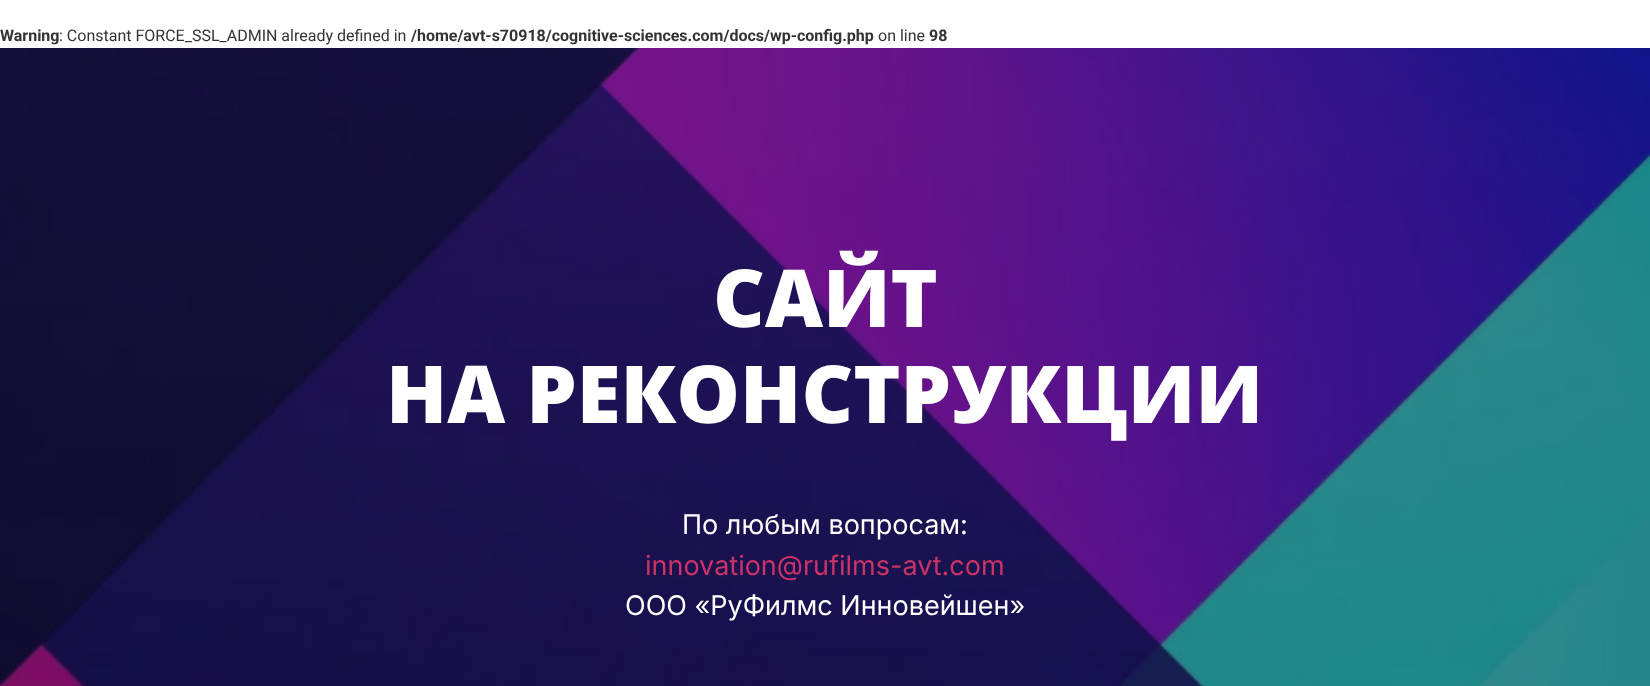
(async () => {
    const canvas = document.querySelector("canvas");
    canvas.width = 1650;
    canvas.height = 686;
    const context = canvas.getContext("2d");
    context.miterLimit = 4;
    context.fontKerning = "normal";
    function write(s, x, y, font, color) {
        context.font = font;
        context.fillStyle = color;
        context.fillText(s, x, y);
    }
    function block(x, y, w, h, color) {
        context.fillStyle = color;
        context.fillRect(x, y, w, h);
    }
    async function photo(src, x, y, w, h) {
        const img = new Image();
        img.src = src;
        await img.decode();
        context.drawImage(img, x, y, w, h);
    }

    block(0, 0, 1650, 686, "rgb(255, 255, 255)");
    write("Warning", 0, 41, "bold 16px Roboto", "rgb(51, 51, 51)");
    write(": Constant FORCE_SSL_ADMIN already defined in", 59, 41, "16px Roboto", "rgb(51, 51, 51)");
    write("/home/avt-s70918/cognitive-sciences.com/docs/wp-config.php", 411, 41, "bold 16px Roboto", "rgb(51, 51, 51)");
    write("on line", 878, 41, "16px Roboto", "rgb(51, 51, 51)");
    write("98", 929, 41, "bold 16px Roboto", "rgb(51, 51, 51)");
    block(0, 48, 1650, 638, "rgb(25, 23, 23)");
    await photo("media/1.png", 0, 48, 1650, 638);
    write("САЙТ", 713, 327, "800 80px Open Sans", "rgb(255, 255, 255)");
    write("НА РЕКОНСТРУКЦИИ", 386, 423, "800 80px Open Sans", "rgb(255, 255, 255)");
    write("По любым вопросам:", 682, 534, "27px Inter", "rgb(255, 255, 255)");
    write("innovation@rufilms-avt.com", 645, 575, "27px Inter", "rgb(204, 51, 102)");
    write("ООО «РуФилмс Инновейшен»", 625, 615, "27px Inter", "rgb(255, 255, 255)");
})();
